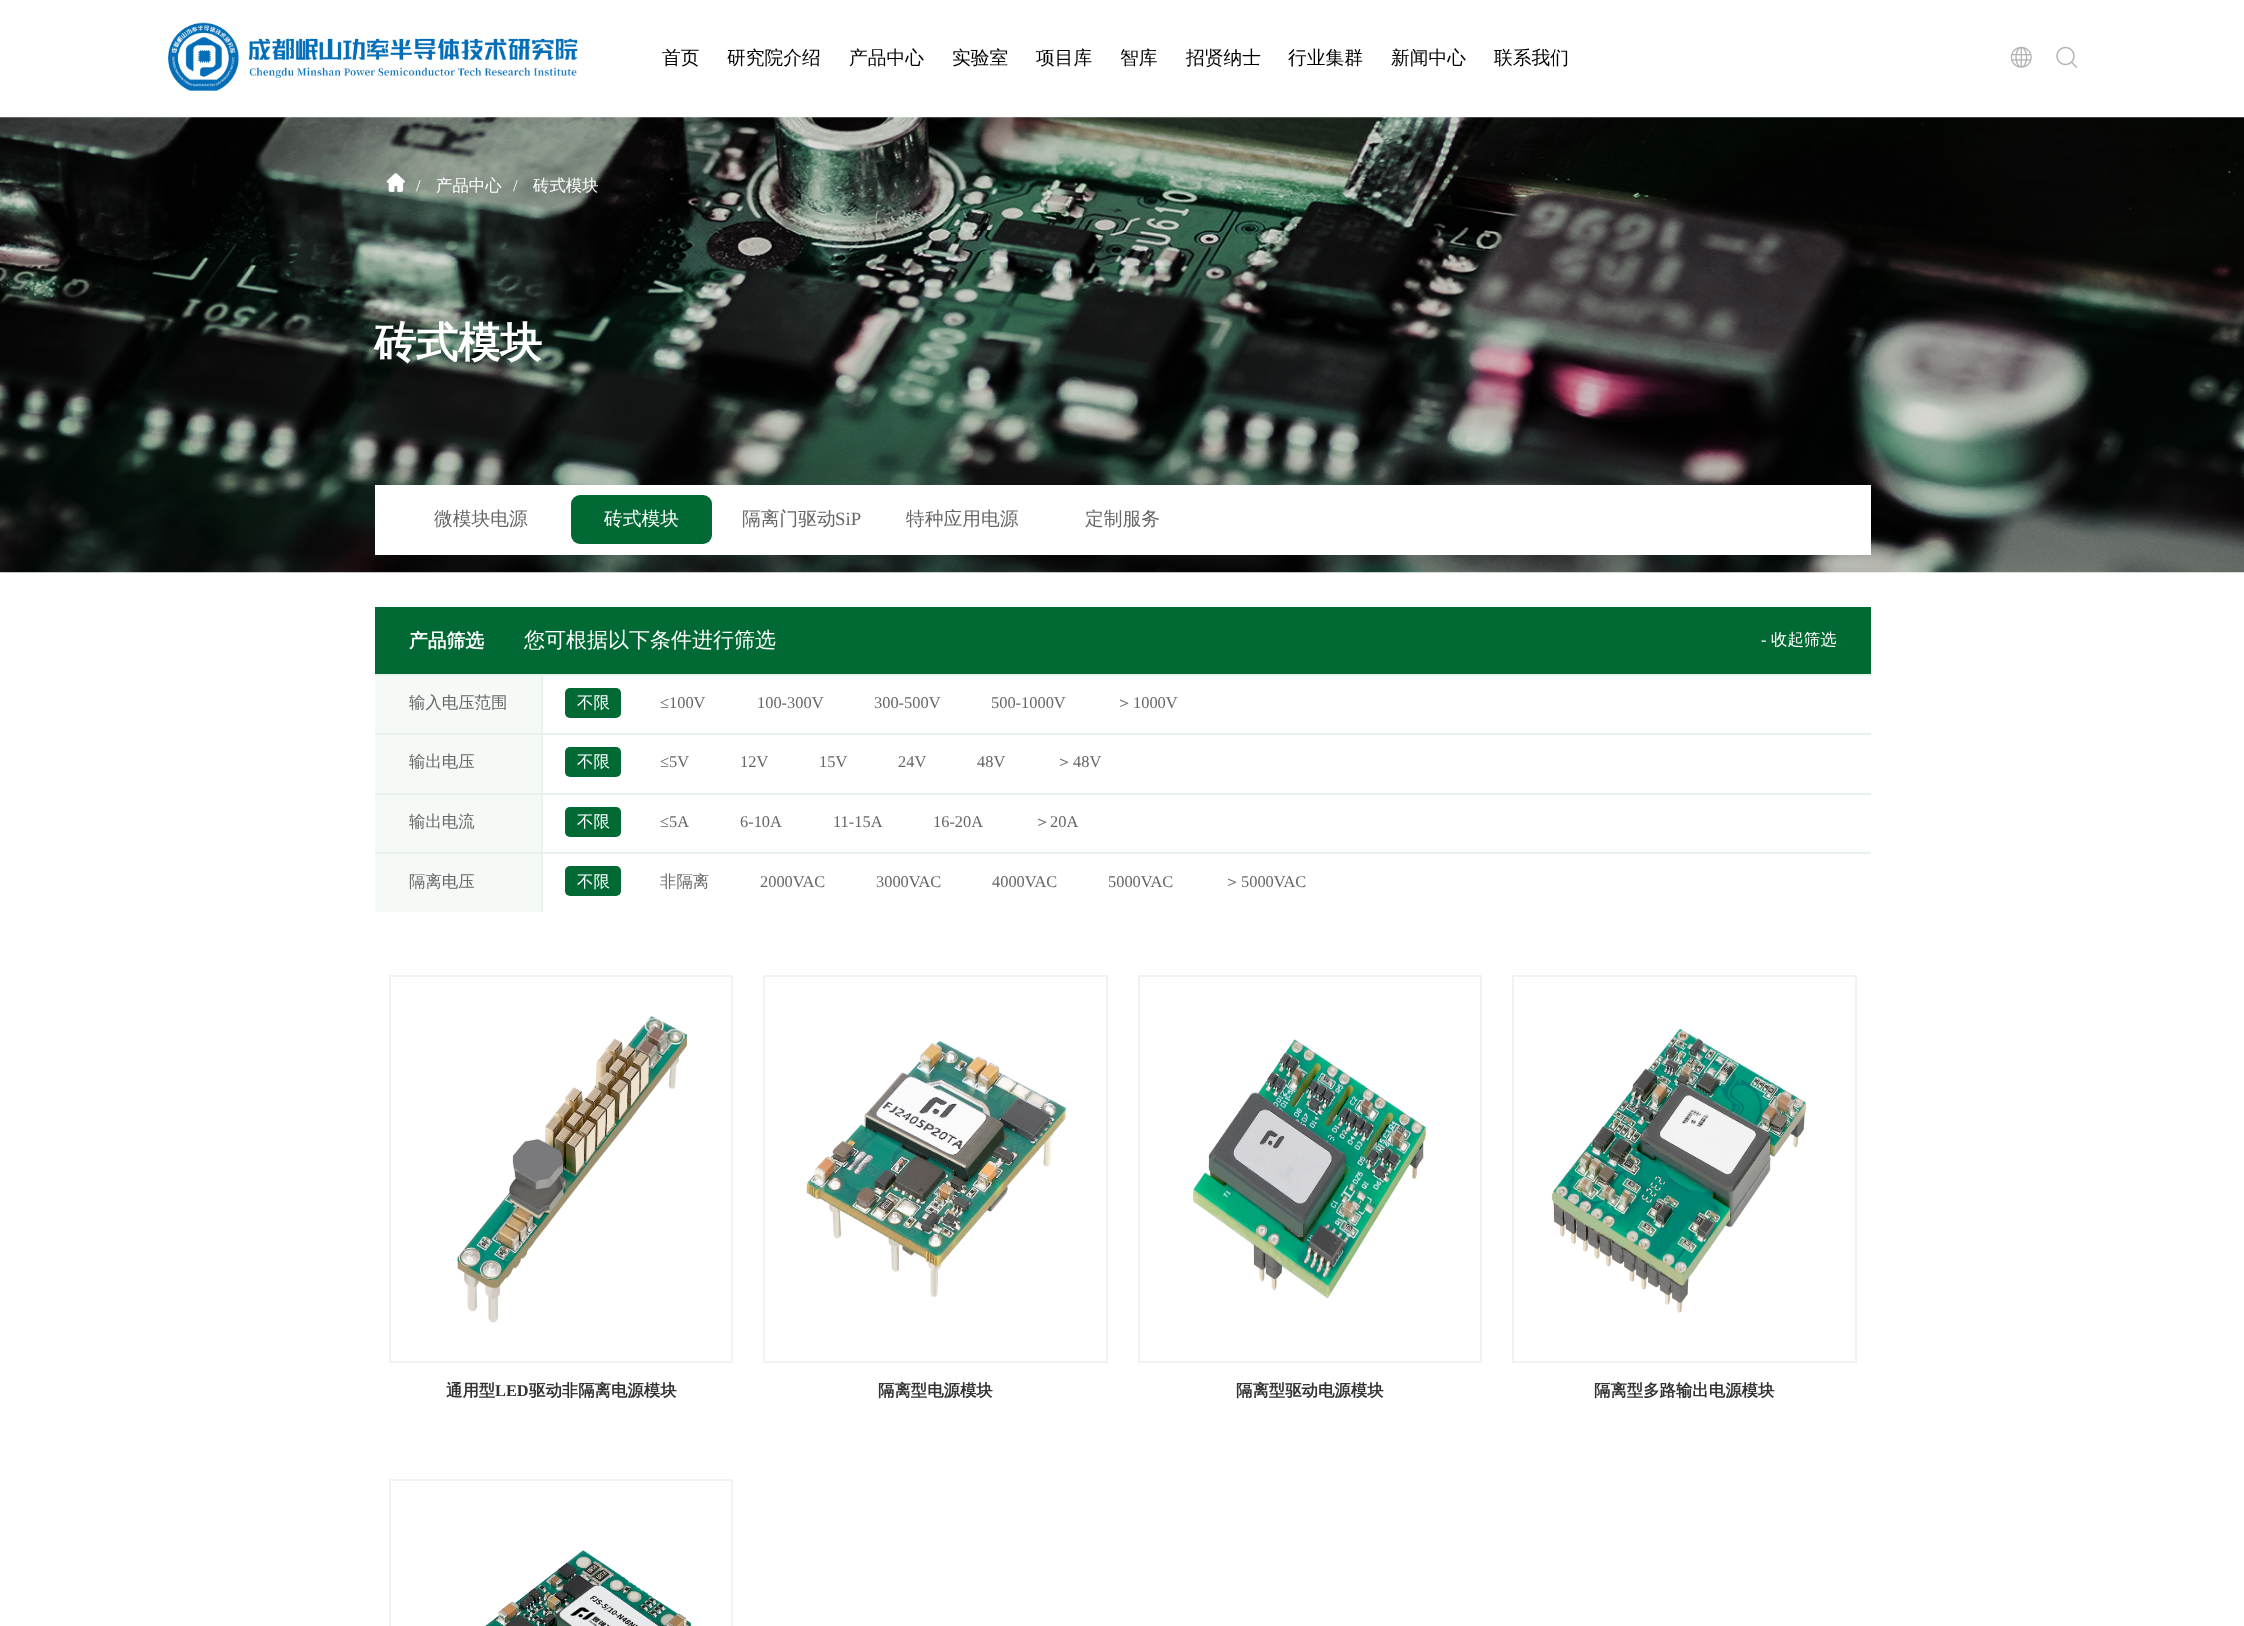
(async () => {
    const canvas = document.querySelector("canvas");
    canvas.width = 2244;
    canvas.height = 1626;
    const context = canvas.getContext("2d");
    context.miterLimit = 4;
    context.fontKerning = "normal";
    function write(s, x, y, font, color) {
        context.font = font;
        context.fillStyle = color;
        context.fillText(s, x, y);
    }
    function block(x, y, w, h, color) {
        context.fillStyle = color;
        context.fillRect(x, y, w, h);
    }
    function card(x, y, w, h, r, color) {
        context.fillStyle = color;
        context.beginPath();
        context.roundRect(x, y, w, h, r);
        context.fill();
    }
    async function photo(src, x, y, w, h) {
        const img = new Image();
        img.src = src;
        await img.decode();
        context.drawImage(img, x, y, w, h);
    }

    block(0, 0, 2244, 1626, "rgb(255, 255, 255)");
    await photo("media/1.png", 168, 22, 410, 69);
    write("首页", 662, 64, "500 18.75px WenQuanYi Zen Hei", "rgb(0, 0, 0)");
    write("研究院介绍", 727, 64, "500 18.75px WenQuanYi Zen Hei", "rgb(0, 0, 0)");
    write("产品中心", 849, 64, "500 18.75px WenQuanYi Zen Hei", "rgb(0, 0, 0)");
    write("实验室", 952, 64, "500 18.75px WenQuanYi Zen Hei", "rgb(0, 0, 0)");
    write("项目库", 1036, 64, "500 18.75px WenQuanYi Zen Hei", "rgb(0, 0, 0)");
    write("智库", 1120, 64, "500 18.75px WenQuanYi Zen Hei", "rgb(0, 0, 0)");
    write("招贤纳士", 1186, 64, "500 18.75px WenQuanYi Zen Hei", "rgb(0, 0, 0)");
    write("行业集群", 1288, 64, "500 18.75px WenQuanYi Zen Hei", "rgb(0, 0, 0)");
    write("新闻中心", 1391, 64, "500 18.75px WenQuanYi Zen Hei", "rgb(0, 0, 0)");
    write("联系我们", 1494, 64, "500 18.75px WenQuanYi Zen Hei", "rgb(0, 0, 0)");
    await photo("media/2.png", 2010, 46, 22, 22);
    await photo("media/3.png", 2056, 46, 22, 22);
    await photo("media/4.png", 0, 117, 2244, 456);
    await photo("media/5.png", 386, 173, 19, 19);
    write("/", 416, 191, "16.4px Liberation Serif", "rgb(255, 255, 255)");
    write("产品中心", 436, 191, "500 16.4px WenQuanYi Zen Hei", "rgb(255, 255, 255)");
    write("/", 513, 191, "16.4px Liberation Serif", "rgb(255, 255, 255)");
    write("砖式模块", 533, 191, "500 16.4px WenQuanYi Zen Hei", "rgb(255, 255, 255)");
    write("砖式模块", 374, 357, "bold 42px WenQuanYi Zen Hei", "rgb(255, 255, 255)");
    block(375, 485, 1496, 70, "rgb(255, 255, 255)");
    write("微模块电源", 434, 525, "500 18.75px WenQuanYi Zen Hei", "rgb(102, 102, 102)");
    card(571, 495, 141, 49, 9, "rgb(0, 105, 52)");
    write("砖式模块", 604, 525, "500 18.75px WenQuanYi Zen Hei", "rgb(255, 255, 255)");
    write("隔离门驱动", 742, 525, "500 18.75px WenQuanYi Zen Hei", "rgb(102, 102, 102)");
    write("SiP", 835, 525, "18.75px Liberation Serif", "rgb(102, 102, 102)");
    write("特种应用电源", 906, 525, "500 18.75px WenQuanYi Zen Hei", "rgb(102, 102, 102)");
    write("定制服务", 1085, 525, "500 18.75px WenQuanYi Zen Hei", "rgb(102, 102, 102)");
    block(375, 607, 1496, 67, "rgb(0, 105, 52)");
    write("产品筛选", 409, 647, "bold 18.75px WenQuanYi Zen Hei", "rgb(255, 255, 255)");
    write("您可根据以下条件进行筛选", 524, 647, "500 21px WenQuanYi Zen Hei", "rgb(255, 255, 255)");
    write("-", 1761, 645, "16.4px Liberation Serif", "rgb(255, 255, 255)");
    write("收起筛选", 1771, 645, "500 16.4px WenQuanYi Zen Hei", "rgb(255, 255, 255)");
    block(375, 674, 1496, 2, "rgb(230, 242, 234)");
    block(375, 676, 166, 57, "rgb(245, 250, 247)");
    block(541, 676, 2, 57, "rgb(230, 242, 234)");
    write("输入电压范围", 409, 708, "500 16.4px WenQuanYi Zen Hei", "rgb(102, 102, 102)");
    card(565, 688, 56, 30, 5, "rgb(0, 105, 52)");
    write("不限", 577, 708, "500 16.4px WenQuanYi Zen Hei", "rgb(255, 255, 255)");
    write("≤100V", 660, 708, "16.4px Liberation Serif", "rgb(102, 102, 102)");
    write("100-300V", 757, 708, "16.4px Liberation Serif", "rgb(102, 102, 102)");
    write("300-500V", 874, 708, "16.4px Liberation Serif", "rgb(102, 102, 102)");
    write("500-1000V", 991, 708, "16.4px Liberation Serif", "rgb(102, 102, 102)");
    write("＞", 1116, 708, "500 16.4px WenQuanYi Zen Hei", "rgb(102, 102, 102)");
    write("1000V", 1133, 708, "16.4px Liberation Serif", "rgb(102, 102, 102)");
    block(375, 733, 1496, 2, "rgb(230, 242, 234)");
    block(375, 735, 166, 58, "rgb(245, 250, 247)");
    block(541, 735, 2, 58, "rgb(230, 242, 234)");
    write("输出电压", 409, 767, "500 16.4px WenQuanYi Zen Hei", "rgb(102, 102, 102)");
    card(565, 747, 56, 30, 5, "rgb(0, 105, 52)");
    write("不限", 577, 767, "500 16.4px WenQuanYi Zen Hei", "rgb(255, 255, 255)");
    write("≤5V", 660, 767, "16.4px Liberation Serif", "rgb(102, 102, 102)");
    write("12V", 740, 767, "16.4px Liberation Serif", "rgb(102, 102, 102)");
    write("15V", 819, 767, "16.4px Liberation Serif", "rgb(102, 102, 102)");
    write("24V", 898, 767, "16.4px Liberation Serif", "rgb(102, 102, 102)");
    write("48V", 977, 767, "16.4px Liberation Serif", "rgb(102, 102, 102)");
    write("＞", 1056, 767, "500 16.4px WenQuanYi Zen Hei", "rgb(102, 102, 102)");
    write("48V", 1073, 767, "16.4px Liberation Serif", "rgb(102, 102, 102)");
    block(375, 793, 1496, 2, "rgb(230, 242, 234)");
    block(375, 795, 166, 57, "rgb(245, 250, 247)");
    block(541, 795, 2, 57, "rgb(230, 242, 234)");
    write("输出电流", 409, 827, "500 16.4px WenQuanYi Zen Hei", "rgb(102, 102, 102)");
    card(565, 807, 56, 30, 5, "rgb(0, 105, 52)");
    write("不限", 577, 827, "500 16.4px WenQuanYi Zen Hei", "rgb(255, 255, 255)");
    write("≤5A", 660, 827, "16.4px Liberation Serif", "rgb(102, 102, 102)");
    write("6-10A", 740, 827, "16.4px Liberation Serif", "rgb(102, 102, 102)");
    write("11-15A", 833, 827, "16.4px Liberation Serif", "rgb(102, 102, 102)");
    write("16-20A", 933, 827, "16.4px Liberation Serif", "rgb(102, 102, 102)");
    write("＞", 1034, 827, "500 16.4px WenQuanYi Zen Hei", "rgb(102, 102, 102)");
    write("20A", 1050, 827, "16.4px Liberation Serif", "rgb(102, 102, 102)");
    block(375, 852, 1496, 2, "rgb(230, 242, 234)");
    block(375, 854, 166, 58, "rgb(245, 250, 247)");
    block(541, 854, 2, 58, "rgb(230, 242, 234)");
    write("隔离电压", 409, 887, "500 16.4px WenQuanYi Zen Hei", "rgb(102, 102, 102)");
    card(565, 866, 56, 30, 5, "rgb(0, 105, 52)");
    write("不限", 577, 887, "500 16.4px WenQuanYi Zen Hei", "rgb(255, 255, 255)");
    write("非隔离", 660, 887, "500 16.4px WenQuanYi Zen Hei", "rgb(102, 102, 102)");
    write("2000VAC", 760, 887, "16.4px Liberation Serif", "rgb(102, 102, 102)");
    write("3000VAC", 876, 887, "16.4px Liberation Serif", "rgb(102, 102, 102)");
    write("4000VAC", 992, 887, "16.4px Liberation Serif", "rgb(102, 102, 102)");
    write("5000VAC", 1108, 887, "16.4px Liberation Serif", "rgb(102, 102, 102)");
    write("＞", 1224, 887, "500 16.4px WenQuanYi Zen Hei", "rgb(102, 102, 102)");
    write("5000VAC", 1241, 887, "16.4px Liberation Serif", "rgb(102, 102, 102)");
    context.strokeStyle = "rgb(242, 242, 242)";
    context.lineWidth = 2;
    context.strokeRect(390, 976, 342, 386);
    await photo("media/6.png", 457, 1016, 231, 307);
    write("通用型", 446, 1396, "bold 16.4px WenQuanYi Zen Hei", "rgb(51, 51, 51)");
    write("LED", 495, 1396, "bold 16.4px Liberation Serif", "rgb(51, 51, 51)");
    write("驱动非隔离电源模块", 529, 1396, "bold 16.4px WenQuanYi Zen Hei", "rgb(51, 51, 51)");
    context.strokeRect(764, 976, 343, 386);
    await photo("media/7.png", 806, 1041, 261, 256);
    write("隔离型电源模块", 878, 1396, "bold 16.4px WenQuanYi Zen Hei", "rgb(51, 51, 51)");
    context.strokeRect(1139, 976, 342, 386);
    await photo("media/8.png", 1192, 1039, 235, 260);
    write("隔离型驱动电源模块", 1236, 1396, "bold 16.4px WenQuanYi Zen Hei", "rgb(51, 51, 51)");
    context.strokeRect(1513, 976, 343, 386);
    await photo("media/9.png", 1551, 1028, 255, 285);
    write("隔离型多路输出电源模块", 1594, 1396, "bold 16.4px WenQuanYi Zen Hei", "rgb(51, 51, 51)");
    context.strokeRect(390, 1480, 342, 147);
    await photo("media/10.png", 485, 1550, 206, 76);
})();
